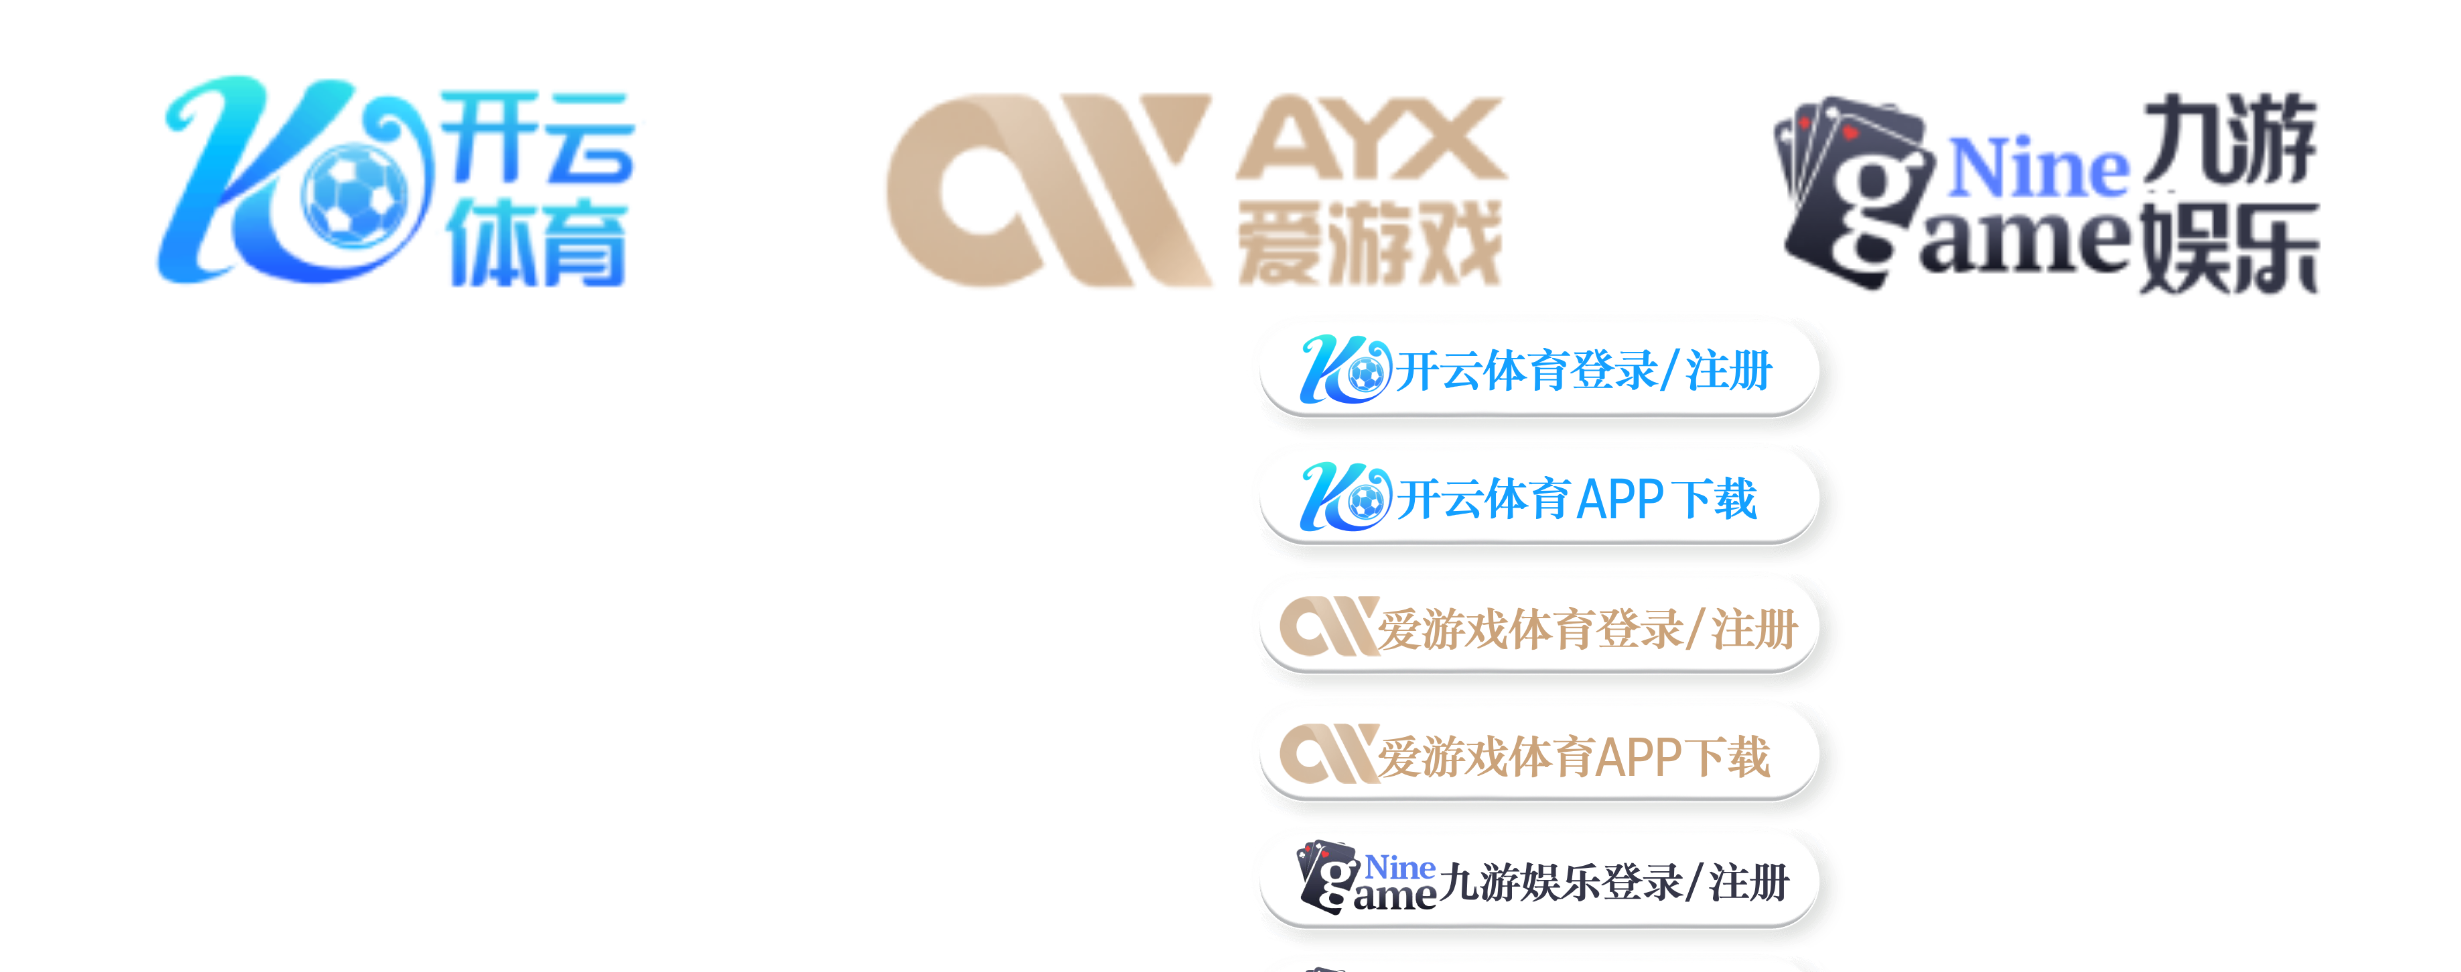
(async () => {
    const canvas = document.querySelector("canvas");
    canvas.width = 2461;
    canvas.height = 972;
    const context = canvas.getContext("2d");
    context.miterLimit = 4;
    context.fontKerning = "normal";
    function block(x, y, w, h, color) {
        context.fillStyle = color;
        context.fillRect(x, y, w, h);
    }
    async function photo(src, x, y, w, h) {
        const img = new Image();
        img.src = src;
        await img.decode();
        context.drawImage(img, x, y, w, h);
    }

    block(0, 0, 2461, 972, "rgb(255, 255, 255)");
    await photo("media/1.png", 154, 72, 2167, 900);
})();
